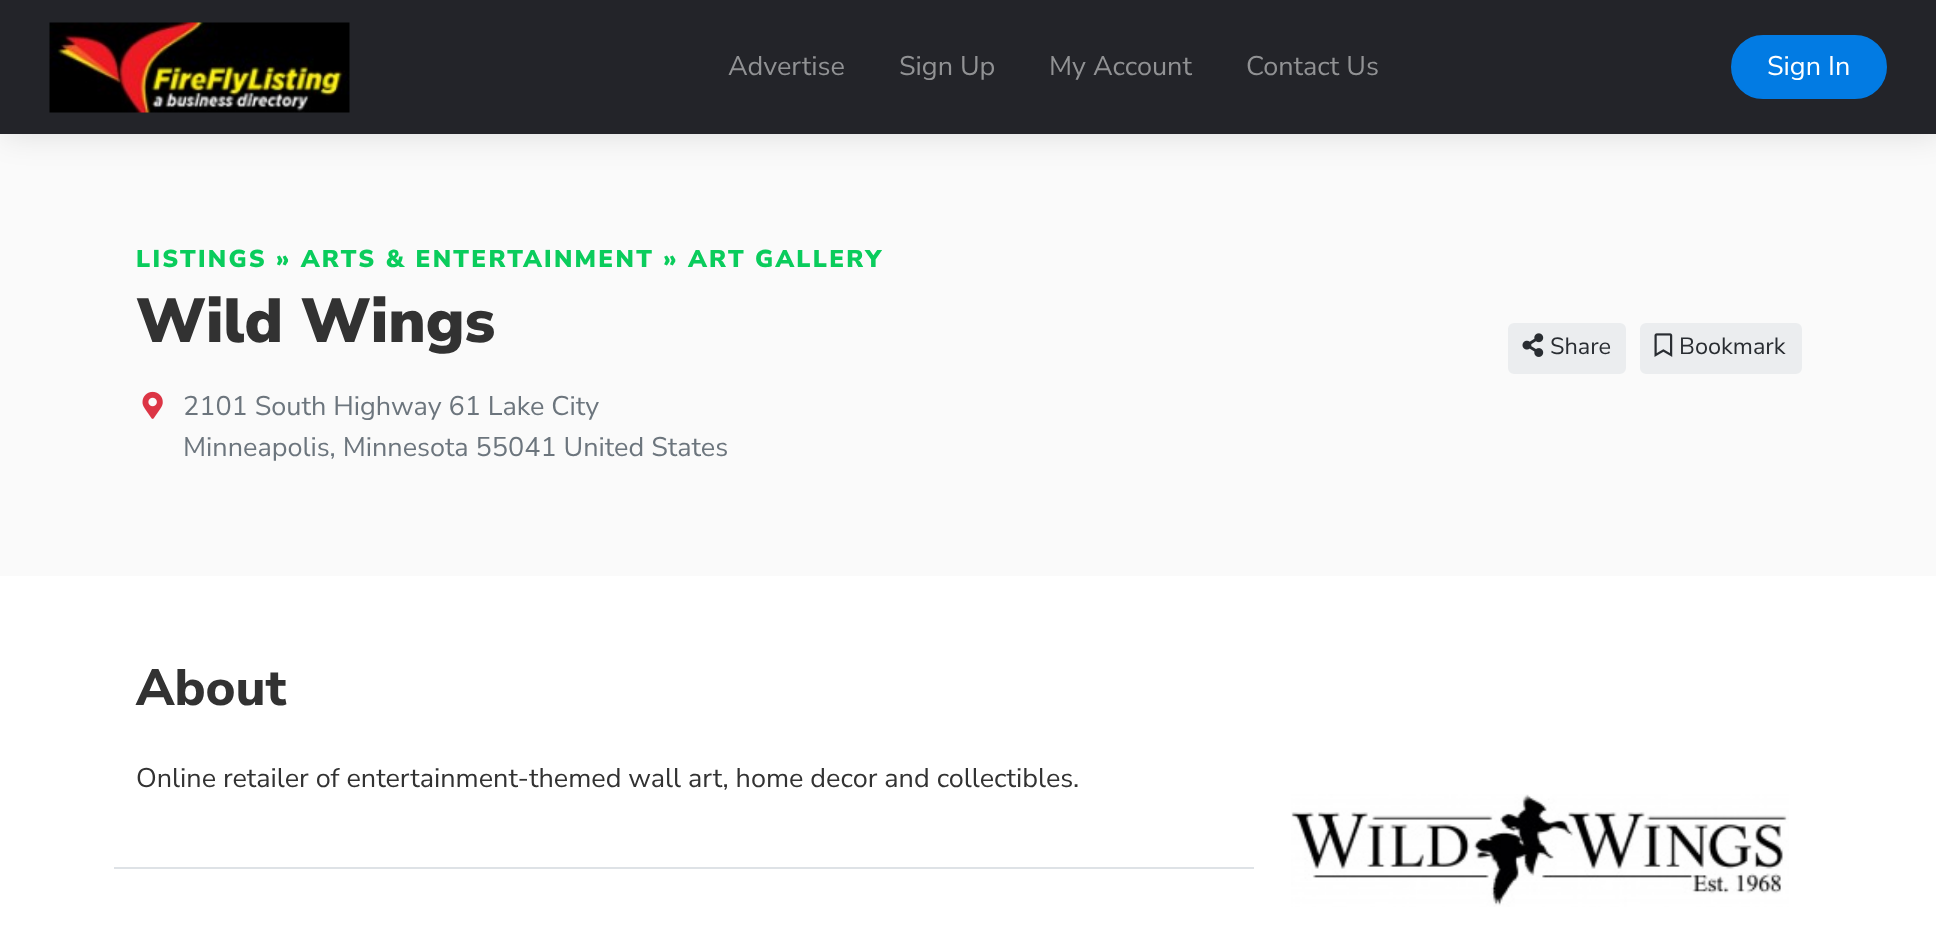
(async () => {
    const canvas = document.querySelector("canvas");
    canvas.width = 1936;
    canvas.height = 933;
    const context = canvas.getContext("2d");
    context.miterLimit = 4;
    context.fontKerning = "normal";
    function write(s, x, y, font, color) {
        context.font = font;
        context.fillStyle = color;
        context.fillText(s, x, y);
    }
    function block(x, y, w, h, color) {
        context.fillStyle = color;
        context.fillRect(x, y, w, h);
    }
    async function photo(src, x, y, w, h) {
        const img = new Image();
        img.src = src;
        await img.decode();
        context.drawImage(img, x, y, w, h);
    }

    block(0, 0, 1936, 933, "rgb(255, 255, 255)");
    block(0, 134, 1936, 442, "rgb(250, 250, 250)");
    context.fillStyle = "rgba(0, 0, 0, 0.1)";
    context.filter = "blur(15px)";
    context.beginPath();
    context.rect(3, 3, 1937, 134);
    context.fill();
    context.filter = "none";
    block(0, 0, 1936, 134, "rgb(35, 36, 41)");
    await photo("media/1.png", 49, 22, 301, 91);
    write("Advertise", 728, 75, "27px Nunito Sans", "rgb(145, 146, 148)");
    write("Sign Up", 899, 75, "27px Nunito Sans", "rgb(145, 146, 148)");
    write("My Account", 1049, 75, "27px Nunito Sans", "rgb(145, 146, 148)");
    write("Contact Us", 1246, 75, "27px Nunito Sans", "rgb(145, 146, 148)");
    context.fillStyle = "rgb(2, 123, 227)";
    context.beginPath();
    context.roundRect(1732, 36, 154, 62, 31);
    context.fill();
    context.strokeStyle = "rgb(2, 123, 227)";
    context.lineWidth = 2;
    context.stroke();
    write("Sign In", 1767, 75, "27px Nunito Sans", "rgb(255, 255, 255)");
    context.letterSpacing = "2.25px";
    write("LISTINGS » ARTS & ENTERTAINMENT » ART GALLERY", 136, 267, "900 24.3px Nunito Sans", "rgb(10, 204, 92)");
    context.letterSpacing = "0px";
    write("Wild Wings", 136, 342, "900 62px Nunito Sans", "rgb(50, 50, 50)");
    await photo("media/2.png", 142, 391, 21, 28);
    write("2101 South Highway 61 Lake City", 183, 415, "27px Nunito Sans", "rgb(108, 117, 125)");
    write("Minneapolis, Minnesota 55041 United States", 183, 456, "27px Nunito Sans", "rgb(108, 117, 125)");
    context.fillStyle = "rgb(235, 237, 239)";
    context.beginPath();
    context.roundRect(1509, 324, 116, 49, 5);
    context.fill();
    context.strokeStyle = "rgb(235, 237, 239)";
    context.stroke();
    await photo("media/3.png", 1522, 333, 22, 24);
    write("Share", 1550, 354, "23.5px Nunito Sans", "rgb(41, 45, 50)");
    context.fillStyle = "rgb(235, 237, 239)";
    context.beginPath();
    context.roundRect(1641, 324, 160, 49, 5);
    context.fill();
    context.stroke();
    await photo("media/4.png", 1654, 333, 19, 24);
    write("Bookmark", 1679, 354, "23.5px Nunito Sans", "rgb(41, 45, 50)");
    block(114, 867, 1140, 2, "rgb(222, 226, 230)");
    write("About", 136, 705, "800 51px Nunito Sans", "rgb(50, 50, 50)");
    write("Online retailer of entertainment-themed wall art, home decor and collectibles.", 136, 787, "27px Nunito Sans", "rgb(50, 50, 50)");
    await photo("media/5.png", 1291, 794, 498, 113);
})();
